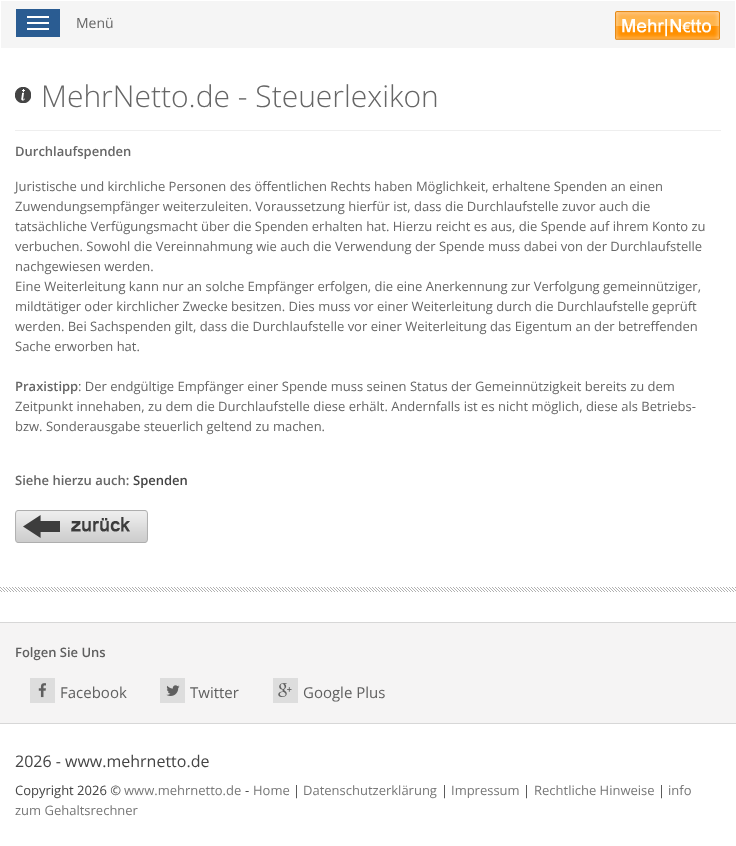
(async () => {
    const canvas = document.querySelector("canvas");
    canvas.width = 736;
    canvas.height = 846;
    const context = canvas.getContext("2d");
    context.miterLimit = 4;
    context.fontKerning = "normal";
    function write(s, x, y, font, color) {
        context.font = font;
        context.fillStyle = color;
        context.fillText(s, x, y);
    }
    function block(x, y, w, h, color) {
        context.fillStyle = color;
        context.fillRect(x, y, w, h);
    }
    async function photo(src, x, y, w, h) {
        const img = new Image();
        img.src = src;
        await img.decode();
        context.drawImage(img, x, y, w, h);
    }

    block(0, 0, 736, 846, "rgb(255, 255, 255)");
    block(1, 1, 734, 47, "rgb(245, 245, 245)");
    block(16, 9, 44, 28, "rgb(42, 92, 146)");
    block(27, 16, 22, 2, "rgb(255, 255, 255)");
    block(27, 22, 22, 2, "rgb(255, 255, 255)");
    block(27, 28, 22, 2, "rgb(255, 255, 255)");
    write("Menü", 76, 28, "14px Open Sans", "rgb(102, 102, 102)");
    await photo("media/1.png", 615, 11, 105, 29);
    await photo("media/2.png", 15, 87, 16, 16);
    write("MehrNetto.de - Steuerlexikon", 41, 107, "300 30px Open Sans", "rgb(102, 102, 102)");
    block(15, 130, 706, 1, "rgb(238, 238, 238)");
    write("Durchlaufspenden", 15, 156, "600 13px Open Sans", "rgb(102, 102, 102)");
    write("Juristische und kirchliche Personen des öffentlichen Rechts haben Möglichkeit, erhaltene Spenden an einen", 15, 191, "13px Open Sans", "rgb(102, 102, 102)");
    write("Zuwendungsempfänger weiterzuleiten. Voraussetzung hierfür ist, dass die Durchlaufstelle zuvor auch die", 15, 211, "13px Open Sans", "rgb(102, 102, 102)");
    write("tatsächliche Verfügungsmacht über die Spenden erhalten hat. Hierzu reicht es aus, die Spende auf ihrem Konto zu", 15, 231, "13px Open Sans", "rgb(102, 102, 102)");
    write("verbuchen. Sowohl die Vereinnahmung wie auch die Verwendung der Spende muss dabei von der Durchlaufstelle", 15, 251, "13px Open Sans", "rgb(102, 102, 102)");
    write("nachgewiesen werden.", 15, 271, "13px Open Sans", "rgb(102, 102, 102)");
    write("Eine Weiterleitung kann nur an solche Empfänger erfolgen, die eine Anerkennung zur Verfolgung gemeinnütziger,", 15, 291, "13px Open Sans", "rgb(102, 102, 102)");
    write("mildtätiger oder kirchlicher Zwecke besitzen. Dies muss vor einer Weiterleitung durch die Durchlaufstelle geprüft", 15, 311, "13px Open Sans", "rgb(102, 102, 102)");
    write("werden. Bei Sachspenden gilt, dass die Durchlaufstelle vor einer Weiterleitung das Eigentum an der betreffenden", 15, 331, "13px Open Sans", "rgb(102, 102, 102)");
    write("Sache erworben hat.", 15, 351, "13px Open Sans", "rgb(102, 102, 102)");
    write("Praxistipp", 15, 391, "600 13px Open Sans", "rgb(102, 102, 102)");
    write(": Der endgültige Empfänger einer Spende muss seinen Status der Gemeinnützigkeit bereits zu dem", 78, 391, "13px Open Sans", "rgb(102, 102, 102)");
    write("Zeitpunkt innehaben, zu dem die Durchlaufstelle diese erhält. Andernfalls ist es nicht möglich, diese als Betriebs-", 15, 411, "13px Open Sans", "rgb(102, 102, 102)");
    write("bzw. Sonderausgabe steuerlich geltend zu machen.", 15, 431, "13px Open Sans", "rgb(102, 102, 102)");
    write("Siehe hierzu auch:", 15, 485, "600 13px Open Sans", "rgb(102, 102, 102)");
    write("Spenden", 133, 485, "600 13px Open Sans", "rgb(68, 68, 68)");
    await photo("media/3.png", 15, 510, 133, 33);
    await photo("media/4.png", 0, 587, 736, 5);
    block(0, 623, 736, 100, "rgb(245, 244, 244)");
    block(0, 622, 736, 1, "rgb(215, 215, 215)");
    block(0, 723, 736, 1, "rgb(215, 215, 215)");
    write("Folgen Sie Uns", 15, 657, "600 13px Open Sans", "rgb(95, 95, 95)");
    block(30, 678, 25, 25, "rgb(221, 221, 221)");
    await photo("media/5.png", 38, 683, 8, 15);
    write("Facebook", 60, 698, "15px Open Sans", "rgb(95, 95, 95)");
    block(160, 678, 25, 25, "rgb(221, 221, 221)");
    await photo("media/6.png", 166, 685, 14, 11);
    write("Twitter", 190, 698, "15px Open Sans", "rgb(95, 95, 95)");
    block(273, 678, 25, 25, "rgb(221, 221, 221)");
    await photo("media/7.png", 278, 683, 14, 14);
    write("Google Plus", 303, 698, "15px Open Sans", "rgb(95, 95, 95)");
    write("2026 - www.mehrnetto.de", 15, 767, "16px Open Sans", "rgb(68, 68, 68)");
    write("Copyright 2026 ©", 15, 795, "13px Open Sans", "rgb(68, 68, 68)");
    write("www.mehrnetto.de", 124, 795, "13px Open Sans", "rgb(119, 119, 119)");
    write("-", 245, 795, "13px Open Sans", "rgb(68, 68, 68)");
    write("Home", 253, 795, "13px Open Sans", "rgb(119, 119, 119)");
    write("|", 293, 795, "13px Open Sans", "rgb(68, 68, 68)");
    write("Datenschutzerklärung", 303, 795, "13px Open Sans", "rgb(119, 119, 119)");
    write("|", 441, 795, "13px Open Sans", "rgb(68, 68, 68)");
    write("Impressum", 451, 795, "13px Open Sans", "rgb(119, 119, 119)");
    write("|", 523, 795, "13px Open Sans", "rgb(68, 68, 68)");
    write("Rechtliche Hinweise", 534, 795, "13px Open Sans", "rgb(119, 119, 119)");
    write("|", 658, 795, "13px Open Sans", "rgb(68, 68, 68)");
    write("info", 668, 795, "13px Open Sans", "rgb(119, 119, 119)");
    write("zum Gehaltsrechner", 15, 815, "13px Open Sans", "rgb(119, 119, 119)");
})();
